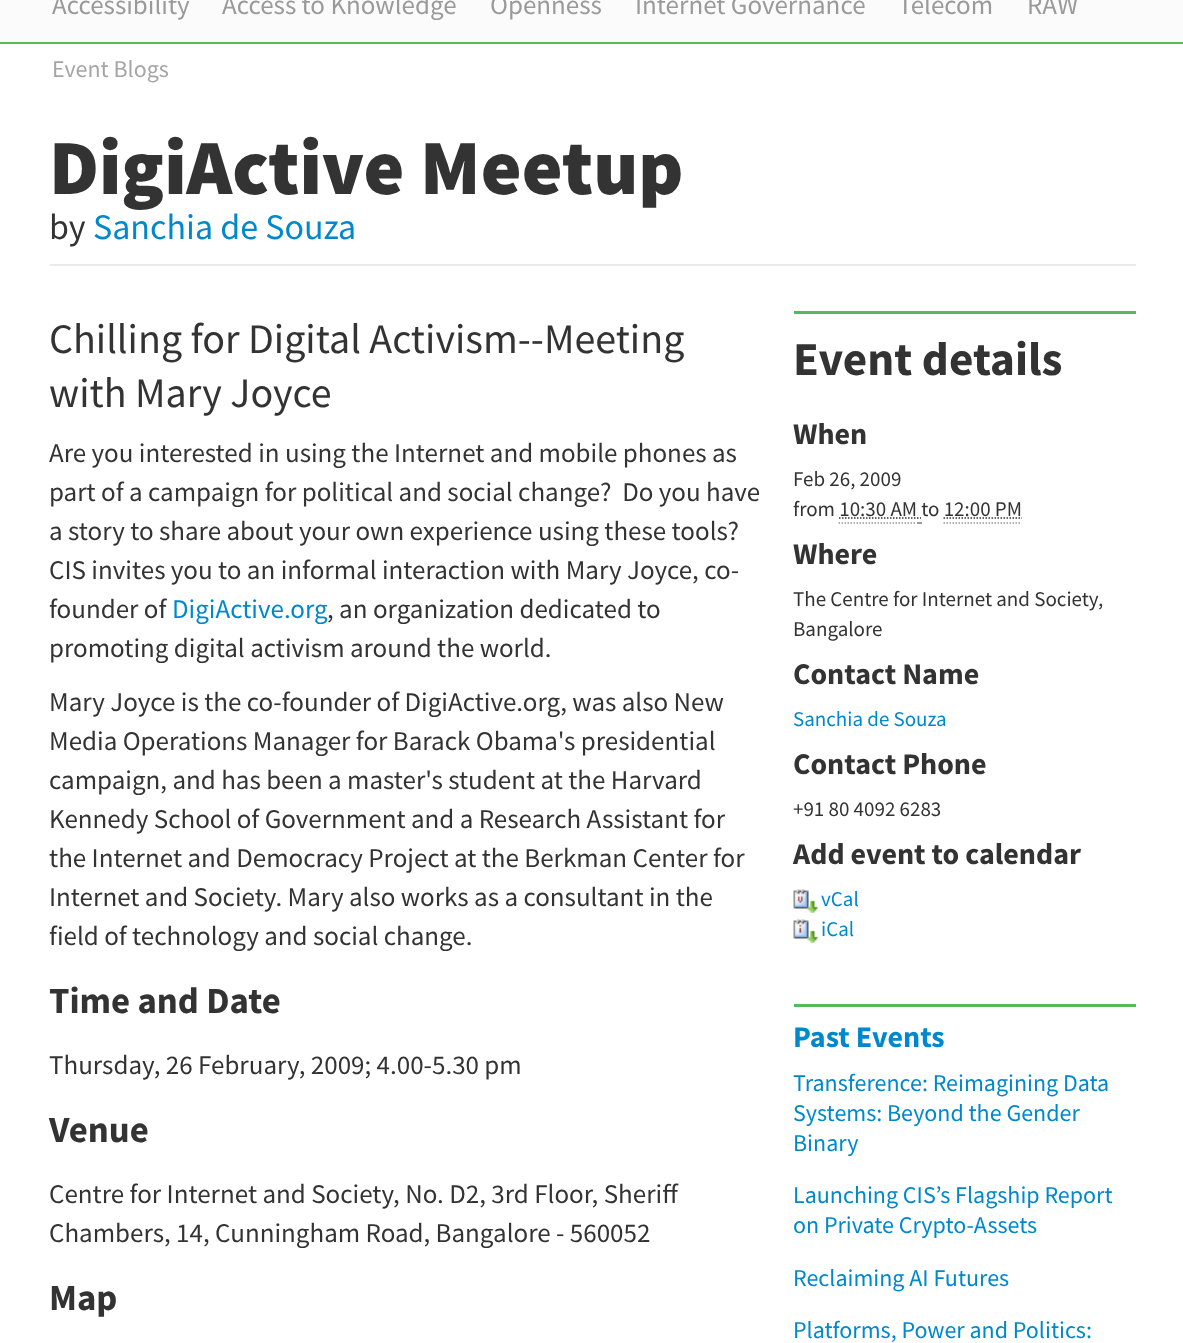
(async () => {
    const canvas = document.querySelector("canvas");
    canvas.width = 1183;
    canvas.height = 1343;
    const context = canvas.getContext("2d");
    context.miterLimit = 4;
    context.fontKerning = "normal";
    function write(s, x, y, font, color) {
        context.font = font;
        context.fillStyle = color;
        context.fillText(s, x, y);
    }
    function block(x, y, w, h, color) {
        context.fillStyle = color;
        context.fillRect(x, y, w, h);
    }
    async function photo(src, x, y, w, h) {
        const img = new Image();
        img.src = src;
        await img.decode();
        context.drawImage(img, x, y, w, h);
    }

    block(0, 0, 1183, 1343, "rgb(255, 255, 255)");
    block(0, 0, 1183, 42, "rgb(251, 251, 251)");
    block(0, 42, 1183, 2, "rgb(86, 186, 93)");
    write("Accessibility", 52, 14, "27px Source Sans Pro", "rgb(154, 154, 154)");
    write("Access to Knowledge", 222, 14, "27px Source Sans Pro", "rgb(154, 154, 154)");
    write("Openness", 490, 14, "27px Source Sans Pro", "rgb(154, 154, 154)");
    write("Internet Governance", 635, 14, "27px Source Sans Pro", "rgb(154, 154, 154)");
    write("Telecom", 898, 14, "27px Source Sans Pro", "rgb(154, 154, 154)");
    write("RAW", 1027, 14, "27px Source Sans Pro", "rgb(154, 154, 154)");
    write("Event Blogs", 52, 77, "24px Source Sans Pro", "rgb(166, 166, 166)");
    block(50, 264, 1086, 2, "rgb(235, 235, 235)");
    write("DigiActive Meetup", 49, 194, "900 78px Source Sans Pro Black", "rgb(51, 51, 51)");
    write("by", 49, 239, "36px Source Sans Pro", "rgb(51, 51, 51)");
    write("Sanchia de Souza", 93, 239, "36px Source Sans Pro", "rgb(0, 136, 204)");
    write("Chilling for Digital Activism--Meeting", 49, 353, "42px Source Sans Pro", "rgb(51, 51, 51)");
    write("with Mary Joyce", 49, 407, "42px Source Sans Pro", "rgb(51, 51, 51)");
    write("Are you interested in using the Internet and mobile phones as", 49, 462, "27px Source Sans Pro", "rgb(51, 51, 51)");
    write("part of a campaign for political and social change?  Do you have", 49, 501, "27px Source Sans Pro", "rgb(51, 51, 51)");
    write("a story to share about your own experience using these tools?", 49, 540, "27px Source Sans Pro", "rgb(51, 51, 51)");
    write("CIS invites you to an informal interaction with Mary Joyce, co-", 49, 579, "27px Source Sans Pro", "rgb(51, 51, 51)");
    write("founder of", 49, 618, "27px Source Sans Pro", "rgb(51, 51, 51)");
    write("DigiActive.org", 172, 618, "27px Source Sans Pro", "rgb(0, 136, 204)");
    write(", an organization dedicated to", 327, 618, "27px Source Sans Pro", "rgb(51, 51, 51)");
    write("promoting digital activism around the world.", 49, 657, "27px Source Sans Pro", "rgb(51, 51, 51)");
    write("Mary Joyce is the co-founder of DigiActive.org, was also New", 49, 711, "27px Source Sans Pro", "rgb(51, 51, 51)");
    write("Media Operations Manager for Barack Obama's presidential", 49, 750, "27px Source Sans Pro", "rgb(51, 51, 51)");
    write("campaign, and has been a master's student at the Harvard", 49, 789, "27px Source Sans Pro", "rgb(51, 51, 51)");
    write("Kennedy School of Government and a Research Assistant for", 49, 828, "27px Source Sans Pro", "rgb(51, 51, 51)");
    write("the Internet and Democracy Project at the Berkman Center for", 49, 867, "27px Source Sans Pro", "rgb(51, 51, 51)");
    write("Internet and Society. Mary also works as a consultant in the", 49, 906, "27px Source Sans Pro", "rgb(51, 51, 51)");
    write("field of technology and social change.", 49, 945, "27px Source Sans Pro", "rgb(51, 51, 51)");
    write("Time and Date", 49, 1013, "bold 36.75px Source Sans Pro", "rgb(51, 51, 51)");
    write("Thursday, 26 February, 2009; 4.00-5.30 pm", 49, 1074, "27px Source Sans Pro", "rgb(51, 51, 51)");
    write("Venue", 49, 1142, "bold 36.75px Source Sans Pro", "rgb(51, 51, 51)");
    write("Centre for Internet and Society, No. D2, 3rd Floor, Sheriff", 49, 1203, "27px Source Sans Pro", "rgb(51, 51, 51)");
    write("Chambers, 14, Cunningham Road, Bangalore - 560052", 49, 1242, "27px Source Sans Pro", "rgb(51, 51, 51)");
    write("Map", 49, 1310, "bold 36.75px Source Sans Pro", "rgb(51, 51, 51)");
    block(794, 311, 342, 3, "rgb(86, 186, 93)");
    write("Event details", 793, 375, "bold 47.25px Source Sans Pro", "rgb(51, 51, 51)");
    write("When", 793, 444, "bold 30px Source Sans Pro", "rgb(51, 51, 51)");
    write("Feb 26, 2009", 793, 486, "21px Source Sans Pro", "rgb(51, 51, 51)");
    write("from 10:30 AM to 12:00 PM", 793, 516, "21px Source Sans Pro", "rgb(51, 51, 51)");
    context.beginPath();
    context.moveTo(839, 518);
    context.lineTo(917, 518);
    context.strokeStyle = "rgb(51, 51, 51)";
    context.lineWidth = 1.5;
    context.setLineDash([1.5, 1.5]);
    context.stroke();
    context.beginPath();
    context.moveTo(917, 518);
    context.lineTo(918.5, 518);
    context.moveTo(920, 518);
    context.lineTo(921, 518);
    context.setLineDash([]);
    context.stroke();
    context.beginPath();
    context.moveTo(943.5, 518);
    context.lineTo(1022, 518);
    context.setLineDash([1.5, 1.5]);
    context.stroke();
    context.beginPath();
    context.moveTo(838.5, 523);
    context.lineTo(916.5, 523);
    context.strokeStyle = "rgb(153, 153, 153)";
    context.stroke();
    block(917, 522, 5, 2, "rgb(153, 153, 153)");
    context.beginPath();
    context.moveTo(943.5, 523);
    context.lineTo(1021.5, 523);
    context.stroke();
    write("Where", 793, 564, "bold 30px Source Sans Pro", "rgb(51, 51, 51)");
    write("The Centre for Internet and Society,", 793, 606, "21px Source Sans Pro", "rgb(51, 51, 51)");
    write("Bangalore", 793, 636, "21px Source Sans Pro", "rgb(51, 51, 51)");
    write("Contact Name", 793, 684, "bold 30px Source Sans Pro", "rgb(51, 51, 51)");
    write("Sanchia de Souza", 793, 726, "21px Source Sans Pro", "rgb(0, 136, 204)");
    write("Contact Phone", 793, 774, "bold 30px Source Sans Pro", "rgb(51, 51, 51)");
    write("+91 80 4092 6283", 793, 816, "21px Source Sans Pro", "rgb(51, 51, 51)");
    write("Add event to calendar", 793, 864, "bold 30px Source Sans Pro", "rgb(51, 51, 51)");
    await photo("media/1.png", 793, 889, 25, 24);
    write("vCal", 821, 906, "21px Source Sans Pro", "rgb(0, 136, 204)");
    await photo("media/2.png", 793, 919, 25, 24);
    write("iCal", 821, 936, "21px Source Sans Pro", "rgb(0, 136, 204)");
    block(794, 1004, 342, 3, "rgb(86, 186, 93)");
    write("Past Events", 793, 1047, "bold 30px Source Sans Pro", "rgb(0, 136, 204)");
    write("Transference: Reimagining Data", 793, 1091, "24px Source Sans Pro", "rgb(0, 136, 204)");
    write("Systems: Beyond the Gender", 793, 1121, "24px Source Sans Pro", "rgb(0, 136, 204)");
    write("Binary", 793, 1151, "24px Source Sans Pro", "rgb(0, 136, 204)");
    write("Launching CIS’s Flagship Report", 793, 1203, "24px Source Sans Pro", "rgb(0, 136, 204)");
    write("on Private Crypto-Assets", 793, 1233, "24px Source Sans Pro", "rgb(0, 136, 204)");
    write("Reclaiming AI Futures", 793, 1286, "24px Source Sans Pro", "rgb(0, 136, 204)");
    write("Platforms, Power and Politics:", 793, 1338, "24px Source Sans Pro", "rgb(0, 136, 204)");
})();
